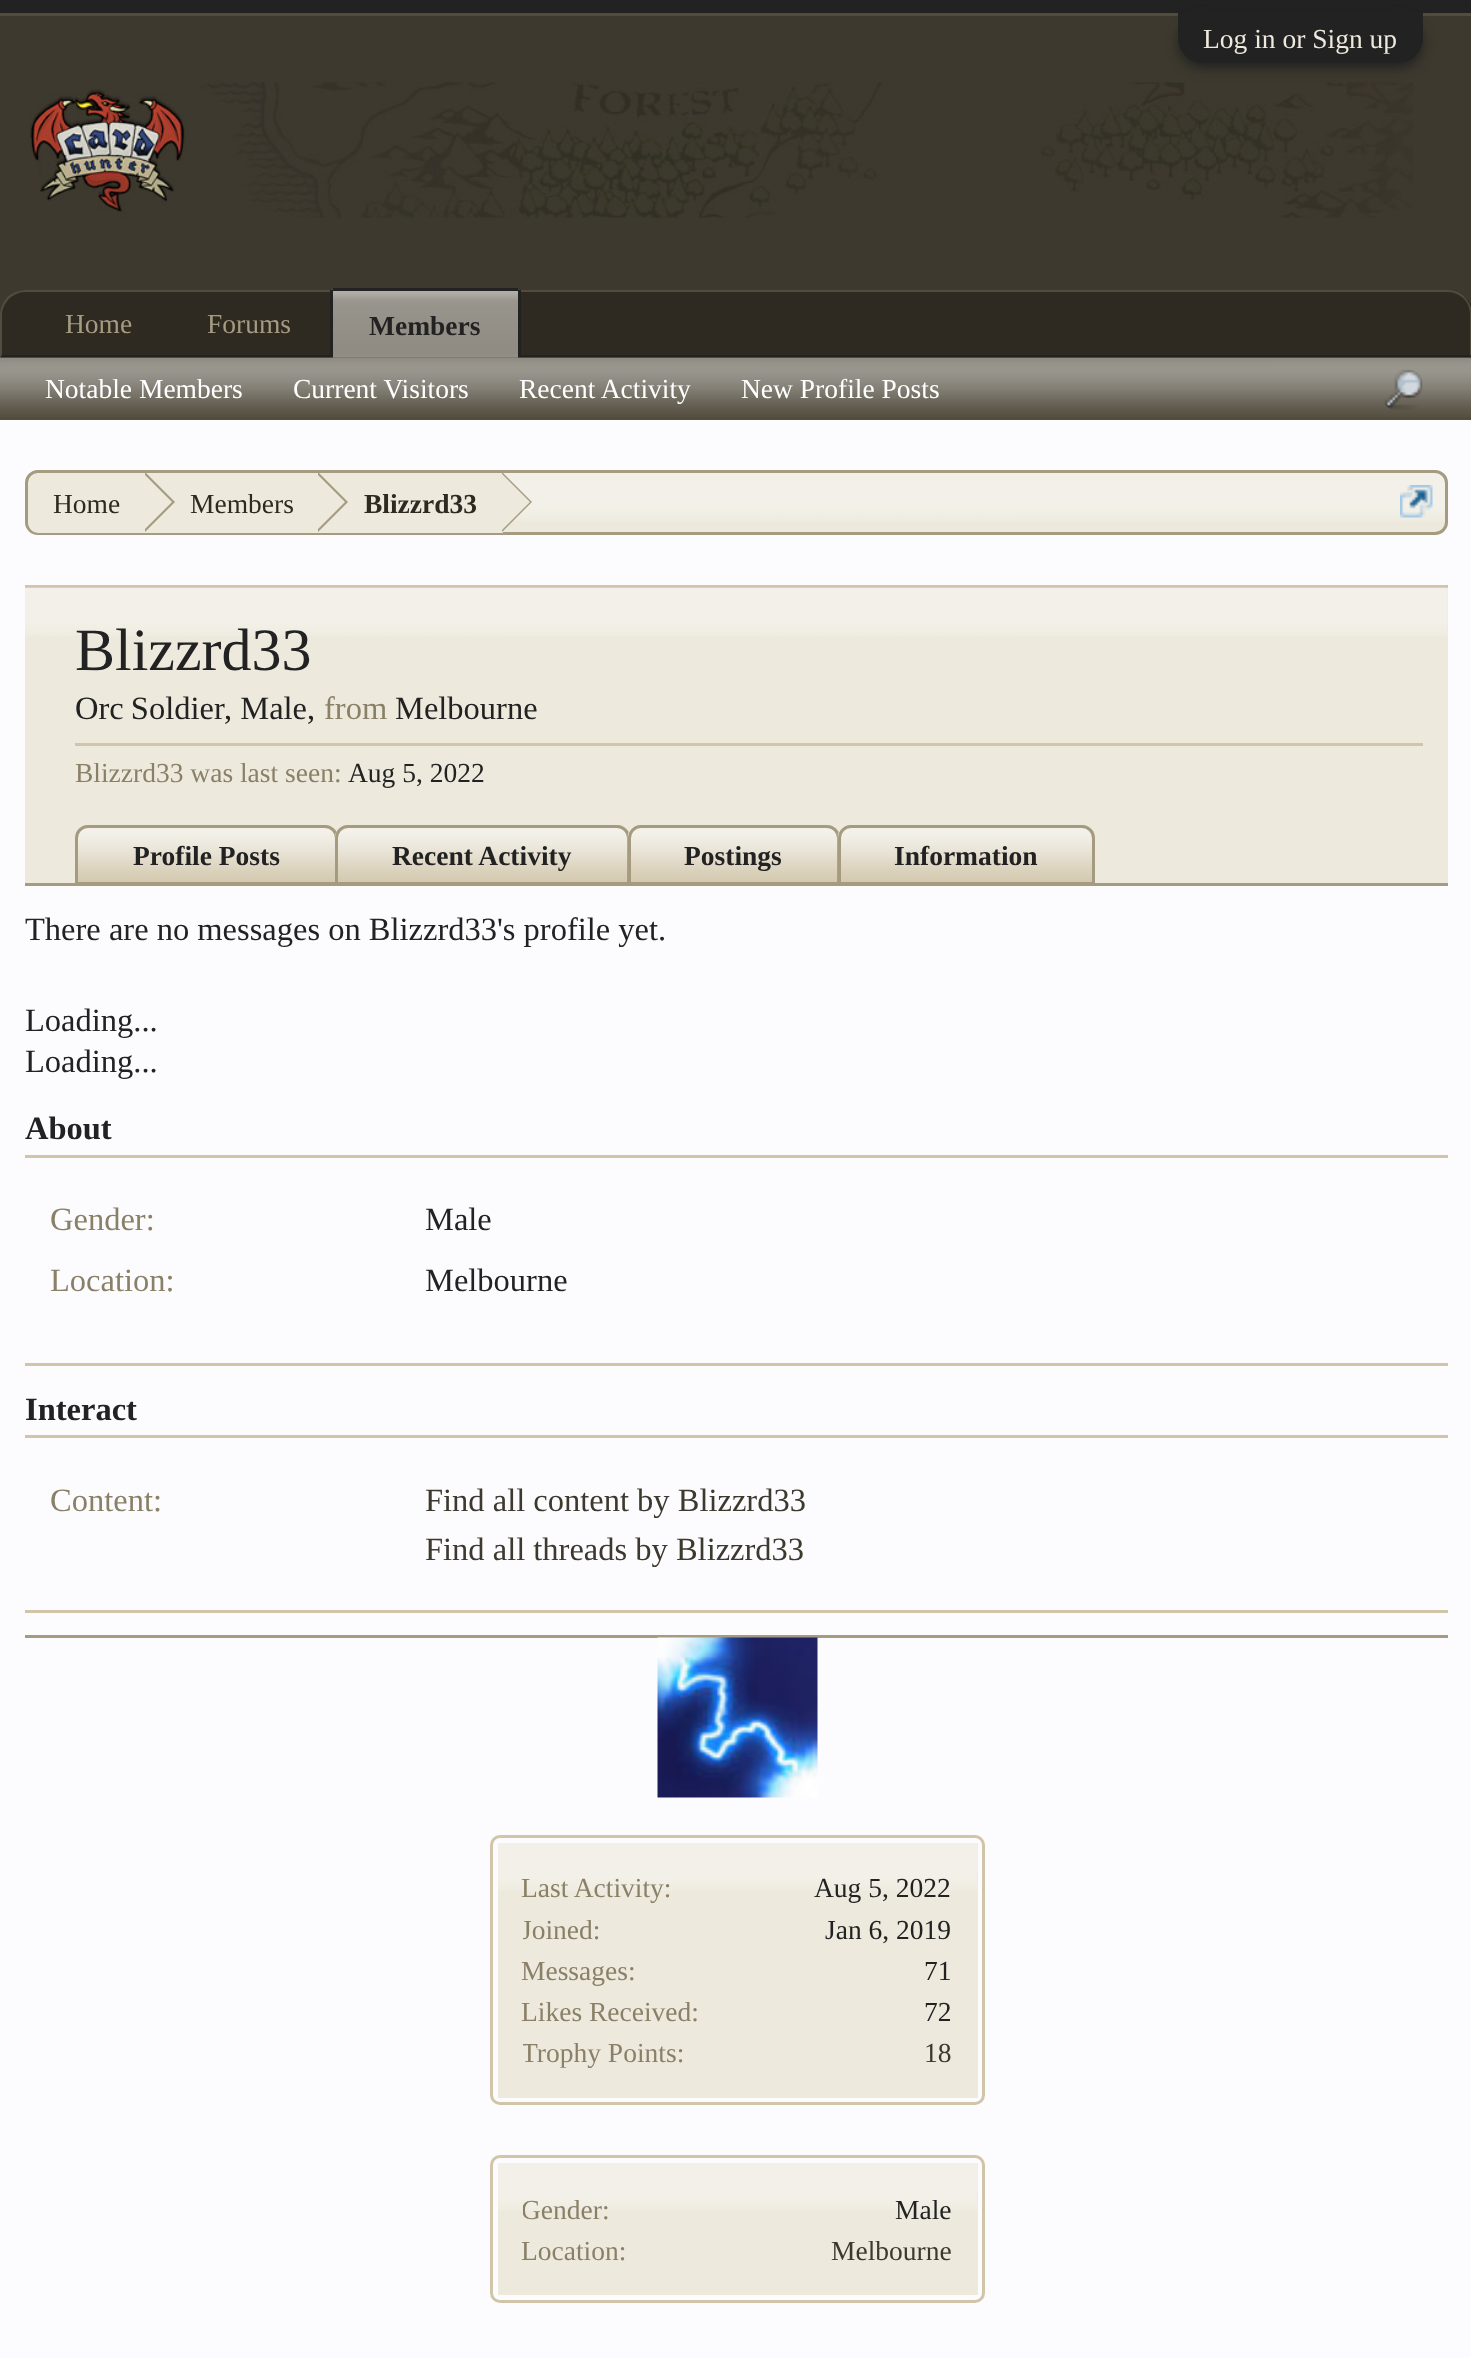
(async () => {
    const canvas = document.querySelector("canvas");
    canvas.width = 1471;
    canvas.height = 2358;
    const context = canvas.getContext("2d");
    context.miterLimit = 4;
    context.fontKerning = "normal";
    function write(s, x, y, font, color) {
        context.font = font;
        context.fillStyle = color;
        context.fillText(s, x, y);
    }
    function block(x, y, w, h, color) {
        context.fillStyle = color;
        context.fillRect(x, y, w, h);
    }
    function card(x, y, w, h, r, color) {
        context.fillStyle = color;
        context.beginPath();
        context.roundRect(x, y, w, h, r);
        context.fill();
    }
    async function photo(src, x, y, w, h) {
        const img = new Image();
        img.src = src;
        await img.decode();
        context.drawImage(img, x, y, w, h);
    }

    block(0, 0, 1471, 2358, "rgb(61, 57, 46)");
    block(0, 0, 1471, 13, "rgb(34, 34, 34)");
    block(0, 13, 1471, 3, "rgb(82, 76, 62)");
    await photo("media/1.png", 29, 82, 1384, 136);
    context.fillStyle = "rgb(34, 34, 34)";
    context.filter = "blur(6px)";
    context.beginPath();
    context.roundRect(1178, 18, 245, 50, 25);
    context.fill();
    context.filter = "none";
    context.beginPath();
    context.roundRect(1178, 13, 245, 50, [0, 0, 25, 25]);
    context.fill();
    write("Log in or Sign up", 1203, 48, "27.5px Liberation Serif", "rgb(237, 233, 221)");
    context.fillStyle = "rgb(46, 42, 33)";
    context.beginPath();
    context.moveTo(25, 290);
    context.lineTo(1448, 290);
    context.bezierCurveTo(1462, 290, 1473, 301, 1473, 315);
    context.lineTo(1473, 358);
    context.lineTo(0, 358);
    context.lineTo(0, 315);
    context.bezierCurveTo(0, 301, 11, 290, 25, 290);
    context.closePath();
    context.fill();
    context.fillStyle = "rgb(82, 76, 62)";
    context.beginPath();
    context.moveTo(25, 290);
    context.bezierCurveTo(18, 290, 12, 293, 7, 297);
    context.lineTo(9, 299);
    context.bezierCurveTo(13, 295, 19, 292, 25, 292);
    context.lineTo(1448, 292);
    context.bezierCurveTo(1454, 292, 1460, 295, 1464, 299);
    context.lineTo(1465, 297);
    context.bezierCurveTo(1461, 293, 1455, 290, 1448, 290);
    context.closePath();
    context.fill();
    context.beginPath();
    context.moveTo(1465, 297);
    context.bezierCurveTo(1469, 302, 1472, 308, 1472, 315);
    context.lineTo(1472, 357);
    context.lineTo(1470, 355);
    context.lineTo(1470, 315);
    context.bezierCurveTo(1470, 309, 1468, 303, 1464, 299);
    context.closePath();
    context.fill();
    context.fillStyle = "rgb(34, 34, 34)";
    context.beginPath();
    context.moveTo(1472, 358);
    context.lineTo(0, 358);
    context.lineTo(2, 355);
    context.lineTo(1470, 355);
    context.closePath();
    context.fill();
    context.fillStyle = "rgb(82, 76, 62)";
    context.beginPath();
    context.moveTo(0, 358);
    context.lineTo(2, 355);
    context.lineTo(2, 315);
    context.bezierCurveTo(2, 309, 5, 303, 9, 299);
    context.lineTo(7, 297);
    context.bezierCurveTo(3, 302, 0, 308, 0, 315);
    context.closePath();
    context.fill();
    context.beginPath();
    context.roundRect(330, 288, 190, 70, [5, 5, 0, 0]);
    context.fill();
    await photo("media/2.png", 333, 291, 185, 67);
    block(333, 288, 185, 3, "rgb(34, 34, 34)");
    block(518, 290, 3, 68, "rgb(34, 34, 34)");
    block(330, 290, 3, 68, "rgb(34, 34, 34)");
    write("Members", 369, 335, "bold 27.5px Liberation Serif", "rgb(34, 34, 34)");
    block(0, 358, 1471, 62, "rgb(82, 76, 62)");
    await photo("media/3.png", 0, 357, 1471, 60);
    write("Notable Members", 45, 398, "27.5px Liberation Serif", "rgb(255, 255, 255)");
    write("Current Visitors", 293, 398, "27.5px Liberation Serif", "rgb(255, 255, 255)");
    write("Recent Activity", 519, 398, "27.5px Liberation Serif", "rgb(255, 255, 255)");
    write("New Profile Posts", 741, 398, "27.5px Liberation Serif", "rgb(255, 255, 255)");
    write("Home", 65, 333, "27.5px Liberation Serif", "rgb(165, 155, 129)");
    write("Forums", 207, 333, "27.5px Liberation Serif", "rgb(165, 155, 129)");
    await photo("media/4.png", 1384, 370, 39, 40);
    block(0, 420, 1471, 1938, "rgb(252, 252, 255)");
    card(25, 470, 1423, 65, 13, "rgb(237, 233, 221)");
    await photo("media/5.png", 25, 472, 1422, 49);
    context.beginPath();
    context.roundRect(26.5, 471.5, 1420, 62, 11.5);
    context.strokeStyle = "rgb(165, 155, 129)";
    context.lineWidth = 3;
    context.stroke();
    context.save();
    context.beginPath();
    context.roundRect(28, 473, 1417, 60, 10);
    context.clip();
    context.beginPath();
    context.roundRect(28, 473, 117, 62, [13, 0, 0, 13]);
    context.fill();
    context.restore();
    write("Home", 53, 513, "27.5px Liberation Serif", "rgb(46, 42, 33)");
    block(145, 473, 358, 60, "rgb(237, 233, 221)");
    context.fillStyle = "rgb(165, 155, 129)";
    context.beginPath();
    context.moveTo(145, 532);
    context.lineTo(175, 502);
    context.lineTo(146, 473);
    context.lineTo(145, 473);
    context.closePath();
    context.fill();
    context.fillStyle = "rgb(237, 233, 221)";
    context.beginPath();
    context.moveTo(142, 532);
    context.lineTo(172, 502);
    context.lineTo(143, 473);
    context.lineTo(142, 473);
    context.closePath();
    context.fill();
    write("Members", 190, 513, "27.5px Liberation Serif", "rgb(46, 42, 33)");
    context.fillStyle = "rgb(165, 155, 129)";
    context.beginPath();
    context.moveTo(318, 532);
    context.lineTo(348, 502);
    context.lineTo(319, 473);
    context.lineTo(318, 473);
    context.closePath();
    context.fill();
    context.fillStyle = "rgb(237, 233, 221)";
    context.beginPath();
    context.moveTo(315, 532);
    context.lineTo(345, 502);
    context.lineTo(316, 473);
    context.lineTo(315, 473);
    context.closePath();
    context.fill();
    write("Blizzrd33", 364, 513, "bold 27.5px Liberation Serif", "rgb(46, 42, 33)");
    context.fillStyle = "rgb(165, 155, 129)";
    context.beginPath();
    context.moveTo(502, 532);
    context.lineTo(532, 502);
    context.lineTo(503, 473);
    context.lineTo(502, 473);
    context.closePath();
    context.fill();
    context.fillStyle = "rgb(237, 233, 221)";
    context.beginPath();
    context.moveTo(500, 532);
    context.lineTo(530, 502);
    context.lineTo(501, 473);
    context.lineTo(500, 473);
    context.closePath();
    context.fill();
    await photo("media/6.png", 1400, 485, 33, 33);
    block(25, 1635, 1423, 3, "rgb(165, 155, 129)");
    block(25, 585, 1423, 3, "rgb(208, 197, 169)");
    block(25, 588, 1423, 295, "rgb(237, 233, 221)");
    await photo("media/7.png", 25, 587, 1423, 49);
    write("Blizzrd33", 75, 670, "60px Liberation Serif", "rgb(34, 34, 34)");
    context.wordSpacing = "-1px";
    write("Orc Soldier", 75, 719, "32.5px Liberation Serif", "rgb(34, 34, 34)");
    context.wordSpacing = "0px";
    write(", Male,", 224, 719, "32.5px Liberation Serif", "rgb(34, 34, 34)");
    write("from", 324, 719, "32.5px Liberation Serif", "rgb(138, 128, 103)");
    write("Melbourne", 395, 719, "32.5px Liberation Serif", "rgb(34, 34, 34)");
    block(75, 743, 1348, 3, "rgb(208, 197, 169)");
    write("Blizzrd33 was last seen:", 75, 782, "27.5px Liberation Serif", "rgb(138, 128, 103)");
    write("Aug 5, 2022", 348, 782, "27.5px Liberation Serif", "rgb(34, 34, 34)");
    block(25, 883, 1423, 3, "rgb(165, 155, 129)");
    context.fillStyle = "rgb(208, 197, 169)";
    context.beginPath();
    context.roundRect(75, 825, 263, 60, [13, 13, 0, 0]);
    context.fill();
    await photo("media/8.png", 75, 827, 262, 55);
    context.beginPath();
    context.roundRect(76.5, 826.5, 260, 57, [11.5, 11.5, 0, 0]);
    context.stroke();
    write("Profile Posts", 133, 865, "bold 27.5px Liberation Serif", "rgb(34, 34, 34)");
    context.fillStyle = "rgb(208, 197, 169)";
    context.beginPath();
    context.roundRect(335, 825, 295, 60, [13, 13, 0, 0]);
    context.fill();
    await photo("media/9.png", 335, 827, 295, 55);
    context.beginPath();
    context.roundRect(336.5, 826.5, 292, 57, [11.5, 11.5, 0, 0]);
    context.stroke();
    write("Recent Activity", 392, 865, "bold 27.5px Liberation Serif", "rgb(34, 34, 34)");
    context.fillStyle = "rgb(208, 197, 169)";
    context.beginPath();
    context.roundRect(628, 825, 212, 60, [13, 13, 0, 0]);
    context.fill();
    await photo("media/10.png", 627, 827, 213, 55);
    context.beginPath();
    context.roundRect(629.5, 826.5, 209, 57, [11.5, 11.5, 0, 0]);
    context.stroke();
    write("Postings", 684, 865, "bold 27.5px Liberation Serif", "rgb(34, 34, 34)");
    context.fillStyle = "rgb(208, 197, 169)";
    context.beginPath();
    context.roundRect(838, 825, 257, 60, [13, 13, 0, 0]);
    context.fill();
    await photo("media/11.png", 837, 827, 258, 55);
    context.beginPath();
    context.roundRect(839.5, 826.5, 254, 57, [11.5, 11.5, 0, 0]);
    context.stroke();
    write("Information", 894, 865, "bold 27.5px Liberation Serif", "rgb(34, 34, 34)");
    write("There are no messages on Blizzrd33's profile yet.", 25, 940, "32.5px Liberation Serif", "rgb(34, 34, 34)");
    write("Loading...", 25, 1031, "32.5px Liberation Serif", "rgb(34, 34, 34)");
    write("Loading...", 25, 1072, "32.5px Liberation Serif", "rgb(34, 34, 34)");
    block(25, 1155, 1423, 3, "rgb(208, 197, 169)");
    write("About", 25, 1139, "bold 32.5px Liberation Serif", "rgb(34, 34, 34)");
    block(25, 1363, 1423, 3, "rgb(208, 197, 169)");
    write("Gender:", 50, 1230, "32.5px Liberation Serif", "rgb(138, 128, 103)");
    write("Male", 425, 1230, "32.5px Liberation Serif", "rgb(34, 34, 34)");
    write("Location:", 50, 1291, "32.5px Liberation Serif", "rgb(138, 128, 103)");
    write("Melbourne", 425, 1291, "32.5px Liberation Serif", "rgb(34, 34, 34)");
    block(25, 1435, 1423, 3, "rgb(208, 197, 169)");
    write("Interact", 25, 1420, "bold 32.5px Liberation Serif", "rgb(34, 34, 34)");
    block(25, 1610, 1423, 3, "rgb(208, 197, 169)");
    write("Content:", 50, 1511, "32.5px Liberation Serif", "rgb(138, 128, 103)");
    write("Find all content by Blizzrd33", 425, 1511, "32.5px Liberation Serif", "rgb(61, 57, 46)");
    write("Find all threads by Blizzrd33", 425, 1560, "32.5px Liberation Serif", "rgb(61, 57, 46)");
    await photo("media/12.png", 657, 1637, 161, 161);
    context.beginPath();
    context.roundRect(491.5, 1836.5, 492, 267, 8.5);
    context.strokeStyle = "rgb(208, 197, 169)";
    context.stroke();
    block(498, 1843, 480, 255, "rgb(237, 233, 221)");
    await photo("media/13.png", 498, 1843, 480, 48);
    write("Last Activity:", 521, 1897, "27.5px Liberation Serif", "rgb(138, 128, 103)");
    write("Aug 5, 2022", 814, 1897, "27.5px Liberation Serif", "rgb(34, 34, 34)");
    context.save();
    context.beginPath();
    context.rect(523, 1908, 430, 42);
    context.clip();
    write("Joined:", 521, 1939, "27.5px Liberation Serif", "rgb(138, 128, 103)");
    context.restore();
    write("Jan 6, 2019", 825, 1939, "27.5px Liberation Serif", "rgb(34, 34, 34)");
    write("Messages:", 521, 1980, "27.5px Liberation Serif", "rgb(138, 128, 103)");
    write("71", 924, 1980, "27.5px Liberation Serif", "rgb(34, 34, 34)");
    write("Likes Received:", 521, 2021, "27.5px Liberation Serif", "rgb(138, 128, 103)");
    write("72", 924, 2021, "27.5px Liberation Serif", "rgb(34, 34, 34)");
    context.save();
    context.beginPath();
    context.rect(523, 2033, 430, 40);
    context.clip();
    write("Trophy Points:", 521, 2062, "27.5px Liberation Serif", "rgb(138, 128, 103)");
    context.restore();
    write("18", 924, 2062, "27.5px Liberation Serif", "rgb(61, 57, 46)");
    context.beginPath();
    context.roundRect(491.5, 2156.5, 492, 145, 8.5);
    context.stroke();
    block(498, 2163, 480, 132, "rgb(237, 233, 221)");
    await photo("media/14.png", 498, 2163, 480, 48);
    context.save();
    context.beginPath();
    context.rect(523, 2188, 430, 42);
    context.clip();
    write("Gender:", 521, 2219, "27.5px Liberation Serif", "rgb(138, 128, 103)");
    context.restore();
    write("Male", 895, 2219, "27.5px Liberation Serif", "rgb(34, 34, 34)");
    write("Location:", 521, 2260, "27.5px Liberation Serif", "rgb(138, 128, 103)");
    write("Melbourne", 831, 2260, "27.5px Liberation Serif", "rgb(61, 57, 46)");
})();
